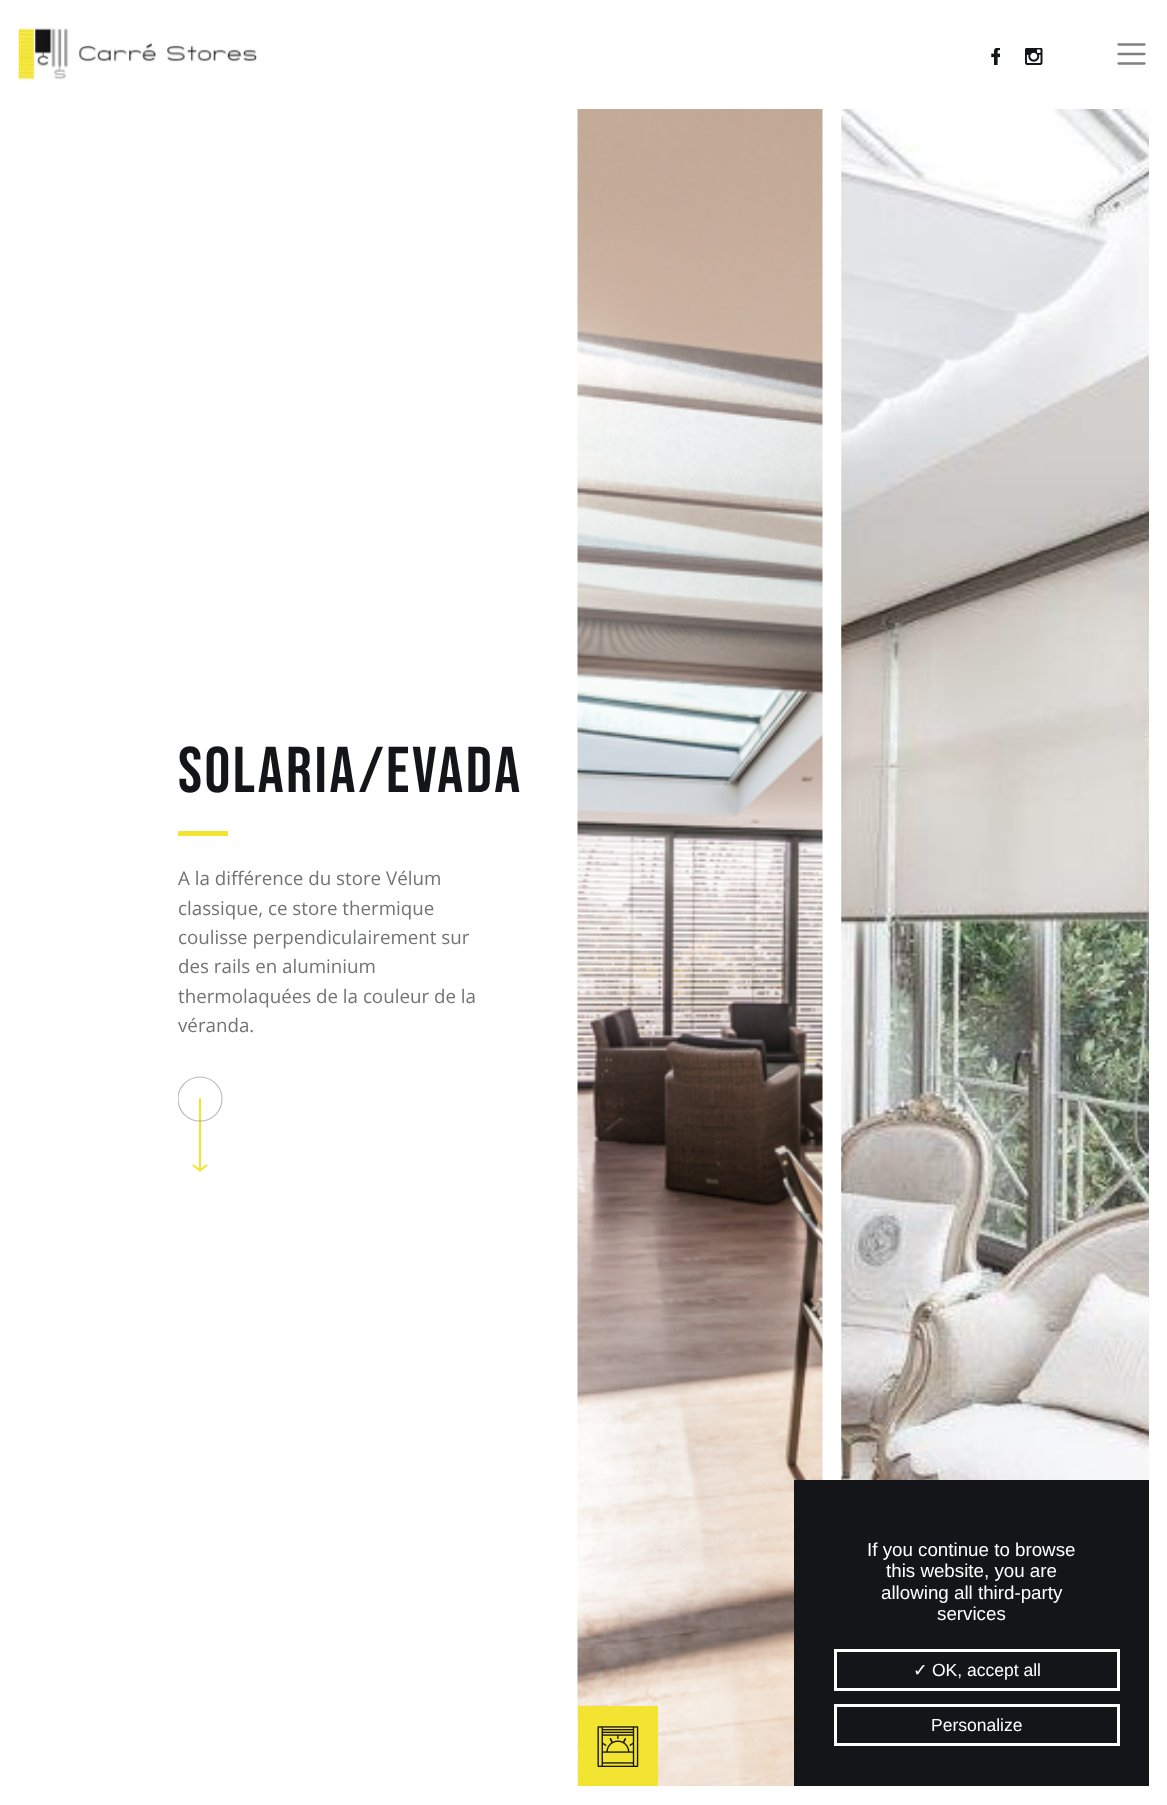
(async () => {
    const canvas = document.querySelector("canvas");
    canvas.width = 1167;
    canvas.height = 1805;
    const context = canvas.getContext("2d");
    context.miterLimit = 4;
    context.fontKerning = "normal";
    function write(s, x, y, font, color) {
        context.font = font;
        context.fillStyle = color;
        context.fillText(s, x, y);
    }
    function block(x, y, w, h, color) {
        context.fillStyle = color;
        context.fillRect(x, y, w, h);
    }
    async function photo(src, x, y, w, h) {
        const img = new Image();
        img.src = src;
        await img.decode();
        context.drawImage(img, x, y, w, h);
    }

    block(0, 0, 1167, 1805, "rgb(255, 255, 255)");
    await photo("media/1.png", 18, 27, 240, 55);
    await photo("media/2.png", 991, 48, 9, 17);
    await photo("media/3.png", 1025, 48, 18, 17);
    context.beginPath();
    context.moveTo(1118.5, 44.5);
    context.lineTo(1144.5, 44.5);
    context.moveTo(1118.5, 54);
    context.lineTo(1144.5, 54);
    context.moveTo(1118.5, 63.5);
    context.lineTo(1144.5, 63.5);
    context.strokeStyle = "rgb(128, 128, 128)";
    context.lineWidth = 2.3;
    context.lineCap = "round";
    context.stroke();
    context.letterSpacing = "2.5px";
    write("Solaria/Evada", 178, 792, "64.5px Bebas Neue", "rgb(20, 21, 25)");
    block(178, 831, 50, 5, "rgb(244, 228, 50)");
    context.letterSpacing = "0px";
    write("A la différence du store Vélum", 178, 885, "18.75px Open Sans", "rgb(114, 115, 117)");
    write("classique, ce store thermique", 178, 915, "18.75px Open Sans", "rgb(114, 115, 117)");
    write("coulisse perpendiculairement sur", 178, 944, "18.75px Open Sans", "rgb(114, 115, 117)");
    write("des rails en aluminium", 178, 973, "18.75px Open Sans", "rgb(114, 115, 117)");
    write("thermolaquées de la couleur de la", 178, 1003, "18.75px Open Sans", "rgb(114, 115, 117)");
    write("véranda.", 178, 1032, "18.75px Open Sans", "rgb(114, 115, 117)");
    context.beginPath();
    context.moveTo(200, 1170.5);
    context.lineTo(200, 1099);
    context.strokeStyle = "rgb(244, 228, 50)";
    context.lineWidth = 2.1;
    context.lineJoin = "round";
    context.stroke();
    context.beginPath();
    context.moveTo(206.5, 1165.5);
    context.lineTo(200, 1170.5);
    context.lineTo(193.5, 1165.5);
    context.stroke();
    context.save();
    context.beginPath();
    context.rect(178, 1069, 45, 110);
    context.clip();
    context.beginPath();
    context.arc(200, 1099, 22, 0, Math.PI * 2);
    context.strokeStyle = "rgba(20, 21, 25, 0.3)";
    context.lineWidth = 1.1;
    context.stroke();
    context.restore();
    await photo("media/4.png", 577, 109, 246, 1677);
    await photo("media/5.png", 578, 1706, 80, 80);
    await photo("media/6.png", 841, 109, 308, 1371);
    block(794, 1480, 355, 306, "rgb(20, 21, 25)");
    write("If you continue to browse", 867, 1556, "18.75px Liberation Sans", "rgb(255, 255, 255)");
    write("this website, you are", 886, 1577, "18.75px Liberation Sans", "rgb(255, 255, 255)");
    write("allowing all third-party", 881, 1599, "18.75px Liberation Sans", "rgb(255, 255, 255)");
    write("services", 937, 1620, "18.75px Liberation Sans", "rgb(255, 255, 255)");
    context.strokeStyle = "rgb(255, 255, 255)";
    context.lineWidth = 3;
    context.lineJoin = "miter";
    context.strokeRect(835.5, 1650.5, 283, 39);
    write("✓", 913, 1676, "17.5px DejaVu Sans", "rgb(255, 255, 255)");
    write("OK, accept all", 932, 1676, "17.5px Liberation Sans", "rgb(255, 255, 255)");
    context.strokeRect(835.5, 1705.5, 283, 39);
    write("Personalize", 931, 1731, "17.5px Liberation Sans", "rgb(255, 255, 255)");
})();
